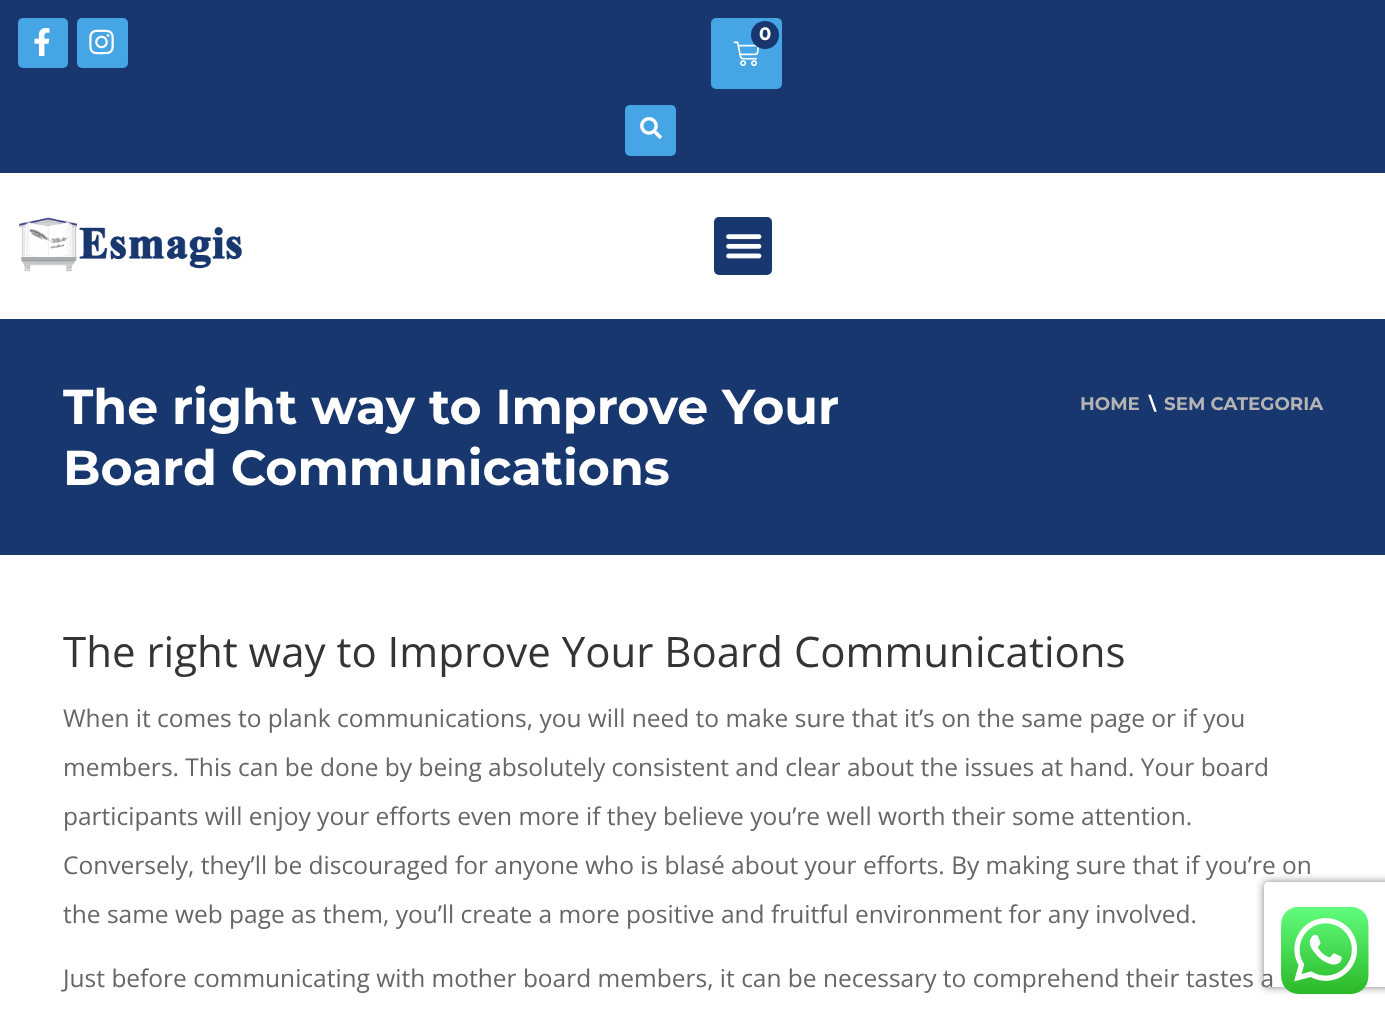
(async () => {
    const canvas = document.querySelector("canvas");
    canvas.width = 1385;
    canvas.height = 1011;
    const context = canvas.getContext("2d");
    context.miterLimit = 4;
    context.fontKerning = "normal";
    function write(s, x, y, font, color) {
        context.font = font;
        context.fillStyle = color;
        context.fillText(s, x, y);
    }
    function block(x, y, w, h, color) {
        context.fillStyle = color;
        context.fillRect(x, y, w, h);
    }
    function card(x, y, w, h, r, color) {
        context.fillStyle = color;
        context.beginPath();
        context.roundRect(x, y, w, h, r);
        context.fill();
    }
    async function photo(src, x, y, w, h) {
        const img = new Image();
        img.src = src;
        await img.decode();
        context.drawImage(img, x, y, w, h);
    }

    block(0, 0, 1385, 1011, "rgb(255, 255, 255)");
    block(0, 0, 1385, 173, "rgb(23, 55, 110)");
    card(18, 18, 50, 50, 5, "rgb(70, 165, 229)");
    await photo("media/1.png", 34, 28, 16, 28);
    card(77, 18, 51, 50, 5, "rgb(70, 165, 229)");
    await photo("media/2.png", 89, 29, 25, 26);
    card(625, 105, 51, 51, 5, "rgb(70, 165, 229)");
    await photo("media/3.png", 640, 117, 22, 22);
    context.beginPath();
    context.roundRect(712, 19, 69, 69, 4);
    context.fill();
    context.strokeStyle = "rgb(70, 165, 229)";
    context.lineWidth = 2;
    context.stroke();
    await photo("media/4.png", 733, 41, 26, 26);
    context.fillStyle = "rgb(23, 55, 110)";
    context.beginPath();
    context.arc(765, 35, 14, 0, Math.PI * 2);
    context.fill();
    write("0", 759, 40, "bold 18px Montserrat", "rgb(255, 255, 255)");
    await photo("media/5.png", 19, 217, 224, 55);
    card(714, 217, 58, 58, 5, "rgb(23, 55, 110)");
    await photo("media/6.png", 726, 234, 36, 25);
    block(0, 319, 1385, 236, "rgb(23, 55, 110)");
    write("The right way to Improve Your", 63, 424, "bold 49px Montserrat", "rgb(255, 255, 255)");
    write("Board Communications", 63, 485, "bold 49px Montserrat", "rgb(255, 255, 255)");
    write("HOME", 1080, 410, "bold 18.25px Montserrat", "rgb(181, 180, 180)");
    write("\\", 1149, 410, "bold 18.25px Montserrat", "rgb(255, 255, 255)");
    write("SEM CATEGORIA", 1164, 410, "bold 18.25px Montserrat", "rgb(181, 180, 180)");
    write("The right way to Improve Your Board Communications", 63, 667, "42px Open Sans", "rgb(52, 52, 52)");
    write("When it comes to plank communications, you will need to make sure that it’s on the same page or if you", 63, 727, "24.5px Open Sans", "rgb(102, 102, 102)");
    write("members. This can be done by being absolutely consistent and clear about the issues at hand. Your board", 63, 776, "24.5px Open Sans", "rgb(102, 102, 102)");
    write("participants will enjoy your efforts even more if they believe you’re well worth their some attention.", 63, 825, "24.5px Open Sans", "rgb(102, 102, 102)");
    write("Conversely, they’ll be discouraged for anyone who is blasé about your efforts. By making sure that if you’re on", 63, 874, "24.5px Open Sans", "rgb(102, 102, 102)");
    write("the same web page as them, you’ll create a more positive and fruitful environment for any involved.", 63, 923, "24.5px Open Sans", "rgb(102, 102, 102)");
    write("Just before communicating with mother board members, it can be necessary to comprehend their tastes a", 63, 987, "24.5px Open Sans", "rgb(102, 102, 102)");
    context.save();
    context.beginPath();
    context.moveTo(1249, 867);
    context.lineTo(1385, 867);
    context.lineTo(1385, 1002);
    context.lineTo(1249, 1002);
    context.closePath();
    context.moveTo(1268, 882);
    context.lineTo(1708, 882);
    context.bezierCurveTo(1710, 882, 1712, 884, 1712, 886);
    context.lineTo(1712, 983);
    context.bezierCurveTo(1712, 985, 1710, 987, 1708, 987);
    context.lineTo(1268, 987);
    context.bezierCurveTo(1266, 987, 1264, 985, 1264, 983);
    context.lineTo(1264, 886);
    context.bezierCurveTo(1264, 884, 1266, 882, 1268, 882);
    context.closePath();
    context.clip("evenodd");
    context.fillStyle = "rgb(128, 128, 128)";
    context.filter = "blur(4.5px)";
    context.beginPath();
    context.roundRect(1264, 882, 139, 105, 4);
    context.fill();
    context.filter = "none";
    context.restore();
    await photo("media/7.png", 1281, 907, 88, 87);
})();
